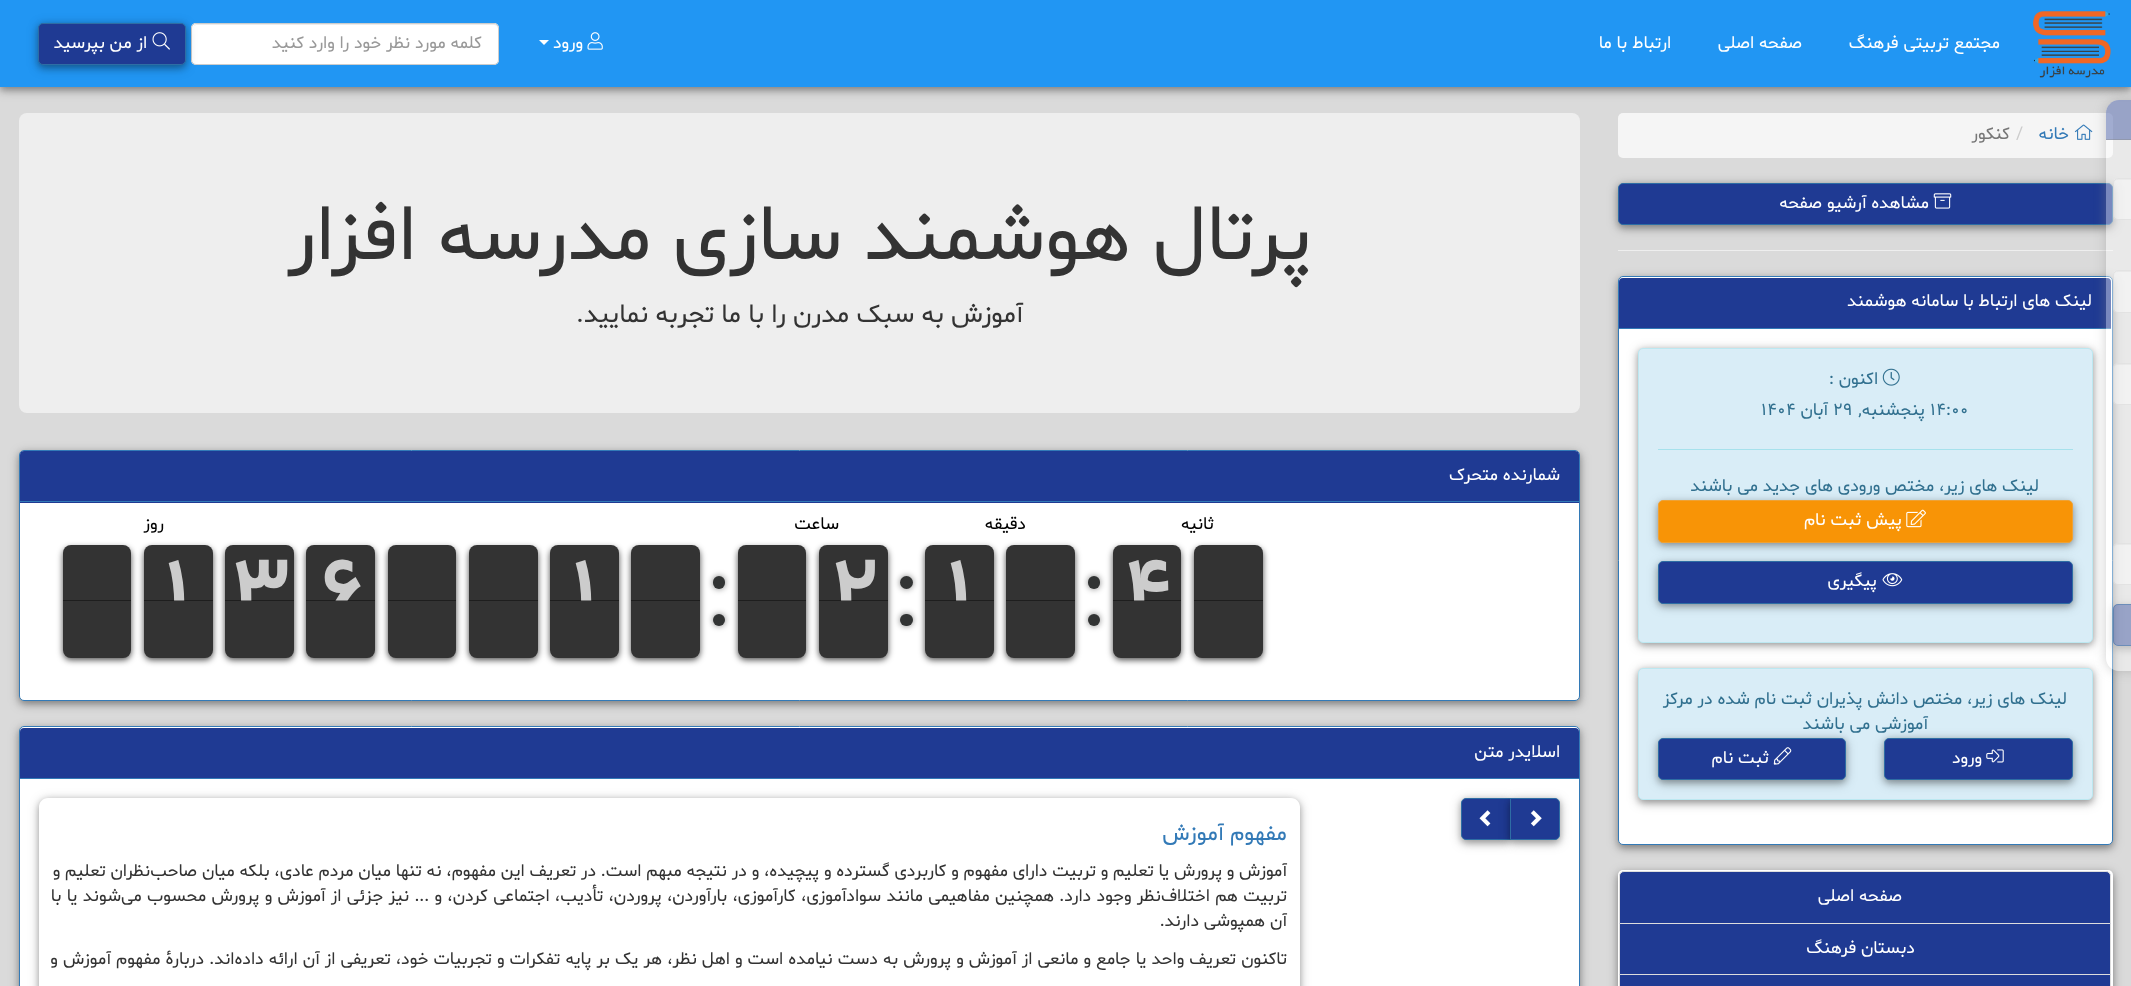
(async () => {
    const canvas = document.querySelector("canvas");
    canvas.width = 2131;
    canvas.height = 986;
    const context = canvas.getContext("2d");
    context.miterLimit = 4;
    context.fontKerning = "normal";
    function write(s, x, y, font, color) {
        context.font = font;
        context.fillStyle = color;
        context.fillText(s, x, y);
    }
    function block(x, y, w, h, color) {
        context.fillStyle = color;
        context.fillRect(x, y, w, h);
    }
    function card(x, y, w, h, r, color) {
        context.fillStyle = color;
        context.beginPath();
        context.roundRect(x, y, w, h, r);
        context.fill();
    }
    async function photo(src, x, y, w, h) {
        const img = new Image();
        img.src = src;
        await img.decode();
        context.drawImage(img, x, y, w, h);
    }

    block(0, 0, 2131, 986, "rgb(218, 218, 218)");
    context.fillStyle = "rgba(0, 0, 0, 0.22)";
    context.filter = "blur(6px)";
    context.beginPath();
    context.rect(0, 3, 2131, 87);
    context.fill();
    context.filter = "none";
    context.fillStyle = "rgba(0, 0, 0, 0.26)";
    context.filter = "blur(3px)";
    context.beginPath();
    context.rect(0, 3, 2131, 87);
    context.fill();
    context.filter = "none";
    block(0, 0, 2131, 87, "rgb(33, 150, 243)");
    await photo("media/1.png", 2033, 11, 78, 67);
    context.direction = "rtl";
    write("مجتمع تربیتی فرهنگ", 2000, 48, "17.5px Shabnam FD", "rgb(255, 255, 255)");
    write("صفحه اصلی", 1802, 48, "17.5px Shabnam FD", "rgb(255, 255, 255)");
    write("ارتباط با ما", 1671, 48, "17.5px Shabnam FD", "rgb(255, 255, 255)");
    await photo("media/2.png", 587, 32, 16, 18);
    write("ورود", 583, 48, "17.5px Shabnam FD", "rgb(255, 255, 255)");
    context.beginPath();
    context.moveTo(539, 40);
    context.lineTo(549, 40);
    context.lineTo(544, 45);
    context.closePath();
    context.fill();
    card(191, 23, 308, 42, 5, "rgb(255, 255, 255)");
    context.fillStyle = "rgb(236, 236, 236)";
    context.beginPath();
    context.moveTo(196, 25);
    context.lineTo(494, 25);
    context.bezierCurveTo(496, 25, 498, 27, 498, 29);
    context.lineTo(498, 28);
    context.bezierCurveTo(498, 26, 496, 24, 494, 24);
    context.lineTo(197, 24);
    context.bezierCurveTo(196, 24, 194, 25, 194, 26);
    context.closePath();
    context.fill();
    context.beginPath();
    context.roundRect(191.5, 23.5, 307, 41, 4.5);
    context.strokeStyle = "rgb(204, 204, 204)";
    context.stroke();
    write("کلمه مورد نظر خود را وارد کنید", 482, 48, "17.5px Shabnam FD", "rgb(153, 153, 153)");
    context.fillStyle = "rgba(0, 0, 0, 0.22)";
    context.filter = "blur(6px)";
    context.beginPath();
    context.roundRect(38, 25, 148, 43, 5);
    context.fill();
    context.filter = "none";
    context.fillStyle = "rgba(0, 0, 0, 0.26)";
    context.filter = "blur(3px)";
    context.beginPath();
    context.roundRect(38, 25, 148, 43, 5);
    context.fill();
    context.filter = "none";
    context.fillStyle = "rgb(31, 58, 147)";
    context.beginPath();
    context.roundRect(38.5, 23.5, 147, 41, 4.5);
    context.fill();
    context.strokeStyle = "rgb(46, 109, 164)";
    context.stroke();
    await photo("media/3.png", 152, 32, 18, 18);
    write("از من بپرسید", 147, 48, "17.5px Shabnam FD", "rgb(255, 255, 255)");
    card(1618, 113, 495, 45, 5, "rgb(245, 245, 245)");
    await photo("media/4.png", 2074, 124, 19, 16);
    context.fillStyle = "rgba(0, 0, 0, 0.22)";
    context.filter = "blur(6px)";
    context.beginPath();
    context.roundRect(1618, 185, 495, 43, 5);
    context.fill();
    context.filter = "none";
    context.fillStyle = "rgba(0, 0, 0, 0.26)";
    context.filter = "blur(3px)";
    context.beginPath();
    context.roundRect(1618, 185, 495, 43, 5);
    context.fill();
    context.filter = "none";
    context.fillStyle = "rgb(31, 58, 147)";
    context.beginPath();
    context.roundRect(1618.5, 183.5, 494, 41, 4.5);
    context.fill();
    context.stroke();
    block(1618, 250, 495, 1, "rgb(238, 238, 238)");
    context.fillStyle = "rgba(0, 0, 0, 0.22)";
    context.filter = "blur(6px)";
    context.beginPath();
    context.roundRect(1618, 279, 495, 569, 5);
    context.fill();
    context.filter = "none";
    context.fillStyle = "rgba(0, 0, 0, 0.26)";
    context.filter = "blur(3px)";
    context.beginPath();
    context.roundRect(1618, 279, 495, 569, 5);
    context.fill();
    context.filter = "none";
    context.fillStyle = "rgb(255, 255, 255)";
    context.beginPath();
    context.roundRect(1618.5, 276.5, 494, 568, 4.5);
    context.fill();
    context.strokeStyle = "rgb(51, 122, 183)";
    context.stroke();
    context.fillStyle = "rgb(31, 58, 147)";
    context.beginPath();
    context.roundRect(1619, 278, 492, 51, [4, 4, 0, 0]);
    context.fill();
    block(1619, 328, 492, 1, "rgb(51, 122, 183)");
    context.fillStyle = "rgba(0, 0, 0, 0.22)";
    context.filter = "blur(6px)";
    context.beginPath();
    context.roundRect(1638, 350, 455, 295, 5);
    context.fill();
    context.filter = "none";
    context.fillStyle = "rgba(0, 0, 0, 0.26)";
    context.filter = "blur(3px)";
    context.beginPath();
    context.roundRect(1638, 350, 455, 295, 5);
    context.fill();
    context.filter = "none";
    context.fillStyle = "rgb(217, 237, 247)";
    context.beginPath();
    context.roundRect(1638.5, 348.5, 454, 294, 4.5);
    context.fill();
    context.strokeStyle = "rgb(188, 232, 241)";
    context.stroke();
    context.fillStyle = "rgba(0, 0, 0, 0.22)";
    context.filter = "blur(6px)";
    context.beginPath();
    context.roundRect(1638, 670, 455, 133, 5);
    context.fill();
    context.filter = "none";
    context.fillStyle = "rgba(0, 0, 0, 0.26)";
    context.filter = "blur(3px)";
    context.beginPath();
    context.roundRect(1638, 670, 455, 133, 5);
    context.fill();
    context.filter = "none";
    context.fillStyle = "rgb(217, 237, 247)";
    context.beginPath();
    context.roundRect(1638.5, 668.5, 454, 131, 4.5);
    context.fill();
    context.stroke();
    context.save();
    context.beginPath();
    context.moveTo(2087, 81);
    context.lineTo(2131, 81);
    context.lineTo(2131, 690);
    context.lineTo(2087, 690);
    context.closePath();
    context.moveTo(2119, 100);
    context.lineTo(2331, 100);
    context.lineTo(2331, 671);
    context.lineTo(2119, 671);
    context.bezierCurveTo(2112, 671, 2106, 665, 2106, 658);
    context.lineTo(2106, 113);
    context.bezierCurveTo(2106, 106, 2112, 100, 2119, 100);
    context.closePath();
    context.clip("evenodd");
    context.fillStyle = "rgba(136, 136, 136, 0.4)";
    context.filter = "blur(6px)";
    context.beginPath();
    context.roundRect(2106, 100, 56, 571, 13);
    context.fill();
    context.filter = "none";
    context.restore();
    context.fillStyle = "rgba(255, 255, 255, 0.4)";
    context.beginPath();
    context.moveTo(2119, 100);
    context.lineTo(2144, 100);
    context.lineTo(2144, 671);
    context.lineTo(2119, 671);
    context.bezierCurveTo(2112, 671, 2106, 665, 2106, 658);
    context.lineTo(2106, 113);
    context.bezierCurveTo(2106, 106, 2112, 100, 2119, 100);
    context.closePath();
    context.fill();
    context.fillStyle = "rgba(31, 58, 147, 0.4)";
    context.beginPath();
    context.moveTo(2119, 100);
    context.lineTo(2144, 100);
    context.lineTo(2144, 140);
    context.lineTo(2106, 140);
    context.lineTo(2106, 113);
    context.bezierCurveTo(2106, 106, 2112, 100, 2119, 100);
    context.closePath();
    context.fill();
    block(2106, 139, 25, 1, "rgba(136, 136, 136, 0.4)");
    card(2113, 178, 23, 42, 5, "rgba(255, 255, 255, 0.4)");
    context.fillStyle = "rgb(234, 234, 234)";
    context.beginPath();
    context.moveTo(2118, 180);
    context.lineTo(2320, 180);
    context.bezierCurveTo(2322, 180, 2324, 182, 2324, 184);
    context.lineTo(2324, 183);
    context.bezierCurveTo(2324, 181, 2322, 179, 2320, 179);
    context.lineTo(2118, 179);
    context.bezierCurveTo(2116, 179, 2114, 181, 2114, 183);
    context.lineTo(2114, 184);
    context.bezierCurveTo(2114, 182, 2115, 180, 2118, 180);
    context.closePath();
    context.fill();
    context.beginPath();
    context.roundRect(2113.5, 178.5, 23, 41, 4.5);
    context.strokeStyle = "rgba(204, 204, 204, 0.4)";
    context.stroke();
    card(2113, 270, 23, 43, 5, "rgba(255, 255, 255, 0.4)");
    context.fillStyle = "rgb(233, 233, 233)";
    context.beginPath();
    context.moveTo(2118, 272);
    context.lineTo(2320, 272);
    context.bezierCurveTo(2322, 272, 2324, 274, 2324, 276);
    context.lineTo(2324, 275);
    context.bezierCurveTo(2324, 273, 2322, 271, 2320, 271);
    context.lineTo(2118, 271);
    context.bezierCurveTo(2116, 271, 2114, 273, 2114, 275);
    context.lineTo(2114, 276);
    context.bezierCurveTo(2114, 274, 2115, 272, 2118, 272);
    context.closePath();
    context.fill();
    context.beginPath();
    context.roundRect(2113.5, 270.5, 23, 42, 4.5);
    context.stroke();
    card(2113, 363, 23, 42, 5, "rgba(255, 255, 255, 0.4)");
    context.fillStyle = "rgba(0, 0, 0, 0.03)";
    context.beginPath();
    context.moveTo(2118, 365);
    context.lineTo(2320, 365);
    context.bezierCurveTo(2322, 365, 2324, 367, 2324, 369);
    context.lineTo(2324, 368);
    context.bezierCurveTo(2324, 366, 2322, 364, 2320, 364);
    context.lineTo(2118, 364);
    context.bezierCurveTo(2116, 364, 2114, 366, 2114, 368);
    context.lineTo(2114, 369);
    context.bezierCurveTo(2114, 367, 2115, 365, 2118, 365);
    context.closePath();
    context.fill();
    context.beginPath();
    context.roundRect(2113.5, 363.5, 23, 41, 4.5);
    context.stroke();
    card(2113, 543, 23, 42, 5, "rgba(255, 255, 255, 0.4)");
    context.fillStyle = "rgba(0, 0, 0, 0.03)";
    context.beginPath();
    context.moveTo(2118, 545);
    context.lineTo(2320, 545);
    context.bezierCurveTo(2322, 545, 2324, 547, 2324, 549);
    context.lineTo(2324, 548);
    context.bezierCurveTo(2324, 546, 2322, 544, 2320, 544);
    context.lineTo(2118, 544);
    context.bezierCurveTo(2116, 544, 2114, 546, 2114, 548);
    context.lineTo(2114, 549);
    context.bezierCurveTo(2114, 547, 2115, 545, 2118, 545);
    context.closePath();
    context.fill();
    context.beginPath();
    context.roundRect(2113.5, 543.5, 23, 41, 4.5);
    context.stroke();
    context.save();
    context.beginPath();
    context.moveTo(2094, 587);
    context.lineTo(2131, 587);
    context.lineTo(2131, 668);
    context.lineTo(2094, 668);
    context.closePath();
    context.moveTo(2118, 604);
    context.lineTo(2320, 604);
    context.bezierCurveTo(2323, 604, 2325, 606, 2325, 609);
    context.lineTo(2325, 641);
    context.bezierCurveTo(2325, 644, 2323, 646, 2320, 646);
    context.lineTo(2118, 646);
    context.bezierCurveTo(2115, 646, 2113, 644, 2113, 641);
    context.lineTo(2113, 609);
    context.bezierCurveTo(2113, 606, 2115, 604, 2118, 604);
    context.closePath();
    context.clip("evenodd");
    context.fillStyle = "rgba(0, 0, 0, 0.09)";
    context.filter = "blur(6px)";
    context.beginPath();
    context.roundRect(2113, 606, 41, 43, 5);
    context.fill();
    context.filter = "none";
    context.restore();
    context.save();
    context.beginPath();
    context.moveTo(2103, 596);
    context.lineTo(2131, 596);
    context.lineTo(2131, 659);
    context.lineTo(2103, 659);
    context.closePath();
    context.moveTo(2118, 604);
    context.lineTo(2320, 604);
    context.bezierCurveTo(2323, 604, 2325, 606, 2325, 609);
    context.lineTo(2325, 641);
    context.bezierCurveTo(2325, 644, 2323, 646, 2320, 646);
    context.lineTo(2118, 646);
    context.bezierCurveTo(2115, 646, 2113, 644, 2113, 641);
    context.lineTo(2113, 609);
    context.bezierCurveTo(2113, 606, 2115, 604, 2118, 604);
    context.closePath();
    context.clip("evenodd");
    context.fillStyle = "rgba(0, 0, 0, 0.1)";
    context.filter = "blur(3px)";
    context.beginPath();
    context.roundRect(2113, 606, 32, 43, 5);
    context.fill();
    context.filter = "none";
    context.restore();
    card(2113, 604, 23, 42, 5, "rgba(31, 58, 147, 0.4)");
    context.beginPath();
    context.roundRect(2113.5, 604.5, 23, 41, 4.5);
    context.strokeStyle = "rgba(46, 109, 164, 0.4)";
    context.stroke();
    write("خانه", 2069, 139, "17.5px Shabnam FD", "rgb(51, 122, 183)");
    context.direction = "ltr";
    write("/", 2016, 139, "17.5px Shabnam FD", "rgb(204, 204, 204)");
    context.direction = "rtl";
    write("کنکور", 2010, 139, "17.5px Shabnam FD", "rgb(119, 119, 119)");
    await photo("media/5.png", 1933, 193, 19, 16);
    write("مشاهده آرشیو صفحه", 1929, 208, "17.5px Shabnam FD", "rgb(255, 255, 255)");
    write("لینک های ارتباط با سامانه هوشمند", 2092, 306, "17.5px Shabnam FD", "rgb(255, 255, 255)");
    await photo("media/6.png", 1882, 368, 18, 18);
    write("اکنون :", 1878, 384, "17.5px Shabnam FD", "rgb(49, 112, 143)");
    context.direction = "ltr";
    write("14:00", 1930, 415, "17.5px Shabnam FD", "rgb(49, 112, 143)");
    context.direction = "rtl";
    write("پنجشنبه,", 1925, 415, "17.5px Shabnam FD", "rgb(49, 112, 143)");
    context.direction = "ltr";
    write("29", 1833, 415, "17.5px Shabnam FD", "rgb(49, 112, 143)");
    context.direction = "rtl";
    write("آبان", 1828, 415, "17.5px Shabnam FD", "rgb(49, 112, 143)");
    context.direction = "ltr";
    write("1404", 1761, 415, "17.5px Shabnam FD", "rgb(49, 112, 143)");
    block(1658, 449, 415, 1, "rgb(166, 225, 236)");
    context.direction = "rtl";
    write("لینک های زیر، مختص ورودی های جدید می باشند", 2039, 491, "17.5px Shabnam FD", "rgb(49, 112, 143)");
    context.fillStyle = "rgba(0, 0, 0, 0.22)";
    context.filter = "blur(6px)";
    context.beginPath();
    context.roundRect(1658, 503, 415, 42, 5);
    context.fill();
    context.filter = "none";
    context.fillStyle = "rgba(0, 0, 0, 0.26)";
    context.filter = "blur(3px)";
    context.beginPath();
    context.roundRect(1658, 503, 415, 42, 5);
    context.fill();
    context.filter = "none";
    context.fillStyle = "rgb(248, 148, 6)";
    context.beginPath();
    context.roundRect(1658.5, 500.5, 414, 42, 4.5);
    context.fill();
    context.strokeStyle = "rgb(238, 162, 54)";
    context.stroke();
    await photo("media/7.png", 1906, 509, 20, 19);
    write("پیش ثبت نام", 1902, 525, "17.5px Shabnam FD", "rgb(255, 255, 255)");
    context.fillStyle = "rgba(0, 0, 0, 0.22)";
    context.filter = "blur(6px)";
    context.beginPath();
    context.roundRect(1658, 564, 415, 42, 5);
    context.fill();
    context.filter = "none";
    context.fillStyle = "rgba(0, 0, 0, 0.26)";
    context.filter = "blur(3px)";
    context.beginPath();
    context.roundRect(1658, 564, 415, 42, 5);
    context.fill();
    context.filter = "none";
    context.fillStyle = "rgb(31, 58, 147)";
    context.beginPath();
    context.roundRect(1658.5, 561.5, 414, 42, 4.5);
    context.fill();
    context.strokeStyle = "rgb(46, 109, 164)";
    context.stroke();
    await photo("media/8.png", 1882, 573, 21, 14);
    write("پیگیری", 1877, 586, "17.5px Shabnam FD", "rgb(255, 255, 255)");
    write("لینک های زیر، مختص دانش پذیران ثبت نام شده در مرکز", 2067, 704, "17.5px Shabnam FD", "rgb(49, 112, 143)");
    write("آموزشی می باشند", 1928, 729, "17.5px Shabnam FD", "rgb(49, 112, 143)");
    context.fillStyle = "rgba(0, 0, 0, 0.22)";
    context.filter = "blur(6px)";
    context.beginPath();
    context.roundRect(1884, 740, 189, 43, 5);
    context.fill();
    context.filter = "none";
    context.fillStyle = "rgba(0, 0, 0, 0.26)";
    context.filter = "blur(3px)";
    context.beginPath();
    context.roundRect(1884, 740, 189, 43, 5);
    context.fill();
    context.filter = "none";
    context.fillStyle = "rgb(31, 58, 147)";
    context.beginPath();
    context.roundRect(1884.5, 738.5, 188, 41, 4.5);
    context.fill();
    context.stroke();
    await photo("media/9.png", 1986, 749, 18, 14);
    write("ورود", 1982, 763, "17.5px Shabnam FD", "rgb(255, 255, 255)");
    context.fillStyle = "rgba(0, 0, 0, 0.22)";
    context.filter = "blur(6px)";
    context.beginPath();
    context.roundRect(1658, 740, 188, 43, 5);
    context.fill();
    context.filter = "none";
    context.fillStyle = "rgba(0, 0, 0, 0.26)";
    context.filter = "blur(3px)";
    context.beginPath();
    context.roundRect(1658, 740, 188, 43, 5);
    context.fill();
    context.filter = "none";
    context.fillStyle = "rgb(31, 58, 147)";
    context.beginPath();
    context.roundRect(1658.5, 738.5, 187, 41, 4.5);
    context.fill();
    context.stroke();
    await photo("media/10.png", 1773, 747, 19, 18);
    write("ثبت نام", 1769, 763, "17.5px Shabnam FD", "rgb(255, 255, 255)");
    context.fillStyle = "rgba(0, 0, 0, 0.22)";
    context.filter = "blur(6px)";
    context.beginPath();
    context.roundRect(1618, 873, 495, 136, 5);
    context.fill();
    context.filter = "none";
    context.fillStyle = "rgba(0, 0, 0, 0.26)";
    context.filter = "blur(3px)";
    context.beginPath();
    context.roundRect(1618, 873, 495, 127, 5);
    context.fill();
    context.filter = "none";
    card(1618, 870, 495, 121, 5, "rgb(255, 255, 255)");
    context.fillStyle = "rgb(31, 58, 147)";
    context.beginPath();
    context.roundRect(1619.5, 871.5, 491, 52, [4.5, 4.5, 0, 0]);
    context.fill();
    context.strokeStyle = "rgb(221, 221, 221)";
    context.stroke();
    write("صفحه اصلی", 1902, 901, "17.5px Shabnam FD", "rgb(255, 255, 255)");
    context.fillStyle = "rgb(31, 58, 147)";
    context.beginPath();
    context.rect(1619.5, 923.5, 491, 51);
    context.fill();
    context.stroke();
    write("دبستان فرهنگ", 1915, 953, "17.5px Shabnam FD", "rgb(255, 255, 255)");
    context.fillStyle = "rgb(31, 58, 147)";
    context.beginPath();
    context.rect(1619.5, 974.5, 491, 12);
    context.fill();
    context.stroke();
    card(19, 113, 1561, 300, 8, "rgb(238, 238, 238)");
    write("پرتال هوشمند سازی مدرسه افزار", 1312, 259, "78.75px Shabnam FD", "rgb(51, 51, 51)");
    write("آموزش به سبک مدرن را با ما تجربه نمایید.", 1023, 322, "26.25px Shabnam FD", "rgb(51, 51, 51)");
    context.fillStyle = "rgba(0, 0, 0, 0.22)";
    context.filter = "blur(6px)";
    context.beginPath();
    context.roundRect(19, 453, 1561, 251, 5);
    context.fill();
    context.filter = "none";
    context.fillStyle = "rgba(0, 0, 0, 0.26)";
    context.filter = "blur(3px)";
    context.beginPath();
    context.roundRect(19, 453, 1561, 251, 5);
    context.fill();
    context.filter = "none";
    context.fillStyle = "rgb(255, 255, 255)";
    context.beginPath();
    context.roundRect(19.5, 450.5, 1560, 250, 4.5);
    context.fill();
    context.strokeStyle = "rgb(51, 122, 183)";
    context.stroke();
    context.fillStyle = "rgb(31, 58, 147)";
    context.beginPath();
    context.roundRect(20, 451, 1559, 52, [4, 4, 0, 0]);
    context.fill();
    block(20, 501, 1559, 1, "rgb(51, 122, 183)");
    write("شمارنده متحرک", 1560, 480, "17.5px Shabnam FD", "rgb(255, 255, 255)");
    write("ثانیه", 1214, 529, "17.5px Shabnam FD", "rgb(0, 0, 0)");
    context.fillStyle = "rgba(0, 0, 0, 0.5)";
    context.filter = "blur(3px)";
    context.beginPath();
    context.roundRect(1088, 576, 12, 13, 6);
    context.fill();
    context.filter = "none";
    card(1088, 576, 12, 13, 6, "rgb(50, 52, 52)");
    context.fillStyle = "rgba(0, 0, 0, 0.5)";
    context.filter = "blur(3px)";
    context.beginPath();
    context.roundRect(1088, 614, 12, 12, 6);
    context.fill();
    context.filter = "none";
    context.fillStyle = "rgb(50, 52, 52)";
    context.beginPath();
    context.arc(1094, 620, 6, 0, Math.PI * 2);
    context.fill();
    write("دقیقه", 1026, 529, "17.5px Shabnam FD", "rgb(0, 0, 0)");
    context.fillStyle = "rgba(0, 0, 0, 0.5)";
    context.filter = "blur(3px)";
    context.beginPath();
    context.roundRect(900, 576, 13, 13, 6.5);
    context.fill();
    context.filter = "none";
    context.fillStyle = "rgb(50, 52, 52)";
    context.beginPath();
    context.arc(906.5, 582.5, 6.5, 0, Math.PI * 2);
    context.fill();
    context.fillStyle = "rgba(0, 0, 0, 0.5)";
    context.filter = "blur(3px)";
    context.beginPath();
    context.roundRect(900, 614, 13, 12, 6);
    context.fill();
    context.filter = "none";
    card(900, 614, 13, 12, 6, "rgb(50, 52, 52)");
    write("ساعت", 839, 529, "17.5px Shabnam FD", "rgb(0, 0, 0)");
    context.fillStyle = "rgba(0, 0, 0, 0.5)";
    context.filter = "blur(3px)";
    context.beginPath();
    context.roundRect(713, 576, 12, 13, 6);
    context.fill();
    context.filter = "none";
    card(713, 576, 12, 13, 6, "rgb(50, 52, 52)");
    context.fillStyle = "rgba(0, 0, 0, 0.5)";
    context.filter = "blur(3px)";
    context.beginPath();
    context.roundRect(713, 614, 12, 12, 6);
    context.fill();
    context.filter = "none";
    context.fillStyle = "rgb(50, 52, 52)";
    context.beginPath();
    context.arc(719, 620, 6, 0, Math.PI * 2);
    context.fill();
    write("روز", 164, 529, "17.5px Shabnam FD", "rgb(0, 0, 0)");
    context.fillStyle = "rgba(0, 0, 0, 0.7)";
    context.filter = "blur(3px)";
    context.beginPath();
    context.roundRect(1194, 548, 69, 112, 8);
    context.fill();
    context.filter = "none";
    context.fillStyle = "rgb(51, 51, 51)";
    context.beginPath();
    context.roundRect(1194, 545, 69, 56, [8, 8, 0, 0]);
    context.fill();
    block(1194, 600, 69, 1, "rgba(0, 0, 0, 0.4)");
    context.fillStyle = "rgb(51, 51, 51)";
    context.beginPath();
    context.roundRect(1194, 601, 69, 57, [0, 0, 8, 8]);
    context.fill();
    context.fillStyle = "rgba(0, 0, 0, 0.7)";
    context.filter = "blur(3px)";
    context.beginPath();
    context.roundRect(1113, 548, 68, 112, 8);
    context.fill();
    context.filter = "none";
    context.fillStyle = "rgb(51, 51, 51)";
    context.beginPath();
    context.roundRect(1113, 545, 68, 56, [8, 8, 0, 0]);
    context.fill();
    context.direction = "ltr";
    write("4", 1122, 620, "bold 88px Shabnam FD", "rgb(204, 204, 204)");
    block(1113, 600, 68, 1, "rgba(0, 0, 0, 0.4)");
    context.fillStyle = "rgb(51, 51, 51)";
    context.beginPath();
    context.roundRect(1113, 601, 68, 57, [0, 0, 8, 8]);
    context.fill();
    context.fillStyle = "rgba(0, 0, 0, 0.7)";
    context.filter = "blur(3px)";
    context.beginPath();
    context.roundRect(1006, 548, 69, 112, 8);
    context.fill();
    context.filter = "none";
    context.fillStyle = "rgb(51, 51, 51)";
    context.beginPath();
    context.roundRect(1006, 545, 69, 56, [8, 8, 0, 0]);
    context.fill();
    block(1006, 600, 69, 1, "rgba(0, 0, 0, 0.4)");
    context.fillStyle = "rgb(51, 51, 51)";
    context.beginPath();
    context.roundRect(1006, 601, 69, 57, [0, 0, 8, 8]);
    context.fill();
    context.fillStyle = "rgba(0, 0, 0, 0.7)";
    context.filter = "blur(3px)";
    context.beginPath();
    context.roundRect(925, 548, 69, 112, 8);
    context.fill();
    context.filter = "none";
    context.fillStyle = "rgb(51, 51, 51)";
    context.beginPath();
    context.roundRect(925, 545, 69, 56, [8, 8, 0, 0]);
    context.fill();
    write("1", 944, 620, "bold 88px Shabnam FD", "rgb(204, 204, 204)");
    block(925, 600, 69, 1, "rgba(0, 0, 0, 0.4)");
    context.fillStyle = "rgb(51, 51, 51)";
    context.beginPath();
    context.roundRect(925, 601, 69, 57, [0, 0, 8, 8]);
    context.fill();
    context.fillStyle = "rgba(0, 0, 0, 0.7)";
    context.filter = "blur(3px)";
    context.beginPath();
    context.roundRect(819, 548, 69, 112, 8);
    context.fill();
    context.filter = "none";
    context.fillStyle = "rgb(51, 51, 51)";
    context.beginPath();
    context.roundRect(819, 545, 69, 56, [8, 8, 0, 0]);
    context.fill();
    write("2", 829, 620, "bold 88px Shabnam FD", "rgb(204, 204, 204)");
    block(819, 600, 69, 1, "rgba(0, 0, 0, 0.4)");
    context.fillStyle = "rgb(51, 51, 51)";
    context.beginPath();
    context.roundRect(819, 601, 69, 57, [0, 0, 8, 8]);
    context.fill();
    context.fillStyle = "rgba(0, 0, 0, 0.7)";
    context.filter = "blur(3px)";
    context.beginPath();
    context.roundRect(738, 548, 68, 112, 8);
    context.fill();
    context.filter = "none";
    context.fillStyle = "rgb(51, 51, 51)";
    context.beginPath();
    context.roundRect(738, 545, 68, 56, [8, 8, 0, 0]);
    context.fill();
    block(738, 600, 68, 1, "rgba(0, 0, 0, 0.4)");
    context.fillStyle = "rgb(51, 51, 51)";
    context.beginPath();
    context.roundRect(738, 601, 68, 57, [0, 0, 8, 8]);
    context.fill();
    context.fillStyle = "rgba(0, 0, 0, 0.7)";
    context.filter = "blur(3px)";
    context.beginPath();
    context.roundRect(631, 548, 69, 112, 8);
    context.fill();
    context.filter = "none";
    context.fillStyle = "rgb(51, 51, 51)";
    context.beginPath();
    context.roundRect(631, 545, 69, 56, [8, 8, 0, 0]);
    context.fill();
    block(631, 600, 69, 1, "rgba(0, 0, 0, 0.4)");
    context.fillStyle = "rgb(51, 51, 51)";
    context.beginPath();
    context.roundRect(631, 601, 69, 57, [0, 0, 8, 8]);
    context.fill();
    context.fillStyle = "rgba(0, 0, 0, 0.7)";
    context.filter = "blur(3px)";
    context.beginPath();
    context.roundRect(550, 548, 69, 112, 8);
    context.fill();
    context.filter = "none";
    context.fillStyle = "rgb(51, 51, 51)";
    context.beginPath();
    context.roundRect(550, 545, 69, 56, [8, 8, 0, 0]);
    context.fill();
    write("1", 569, 620, "bold 88px Shabnam FD", "rgb(204, 204, 204)");
    block(550, 600, 69, 1, "rgba(0, 0, 0, 0.4)");
    context.fillStyle = "rgb(51, 51, 51)";
    context.beginPath();
    context.roundRect(550, 601, 69, 57, [0, 0, 8, 8]);
    context.fill();
    context.fillStyle = "rgba(0, 0, 0, 0.7)";
    context.filter = "blur(3px)";
    context.beginPath();
    context.roundRect(469, 548, 69, 112, 8);
    context.fill();
    context.filter = "none";
    context.fillStyle = "rgb(51, 51, 51)";
    context.beginPath();
    context.roundRect(469, 545, 69, 56, [8, 8, 0, 0]);
    context.fill();
    block(469, 600, 69, 1, "rgba(0, 0, 0, 0.4)");
    context.fillStyle = "rgb(51, 51, 51)";
    context.beginPath();
    context.roundRect(469, 601, 69, 57, [0, 0, 8, 8]);
    context.fill();
    context.fillStyle = "rgba(0, 0, 0, 0.7)";
    context.filter = "blur(3px)";
    context.beginPath();
    context.roundRect(388, 548, 68, 112, 8);
    context.fill();
    context.filter = "none";
    context.fillStyle = "rgb(51, 51, 51)";
    context.beginPath();
    context.roundRect(388, 545, 68, 56, [8, 8, 0, 0]);
    context.fill();
    block(388, 600, 68, 1, "rgba(0, 0, 0, 0.4)");
    context.fillStyle = "rgb(51, 51, 51)";
    context.beginPath();
    context.roundRect(388, 601, 68, 57, [0, 0, 8, 8]);
    context.fill();
    context.fillStyle = "rgba(0, 0, 0, 0.7)";
    context.filter = "blur(3px)";
    context.beginPath();
    context.roundRect(306, 548, 69, 112, 8);
    context.fill();
    context.filter = "none";
    context.fillStyle = "rgb(51, 51, 51)";
    context.beginPath();
    context.roundRect(306, 545, 69, 56, [8, 8, 0, 0]);
    context.fill();
    write("6", 319, 620, "bold 88px Shabnam FD", "rgb(204, 204, 204)");
    block(306, 600, 69, 1, "rgba(0, 0, 0, 0.4)");
    context.fillStyle = "rgb(51, 51, 51)";
    context.beginPath();
    context.roundRect(306, 601, 69, 57, [0, 0, 8, 8]);
    context.fill();
    context.fillStyle = "rgba(0, 0, 0, 0.7)";
    context.filter = "blur(3px)";
    context.beginPath();
    context.roundRect(225, 548, 69, 112, 8);
    context.fill();
    context.filter = "none";
    context.fillStyle = "rgb(51, 51, 51)";
    context.beginPath();
    context.roundRect(225, 545, 69, 56, [8, 8, 0, 0]);
    context.fill();
    write("3", 229, 620, "bold 88px Shabnam FD", "rgb(204, 204, 204)");
    block(225, 600, 69, 1, "rgba(0, 0, 0, 0.4)");
    context.fillStyle = "rgb(51, 51, 51)";
    context.beginPath();
    context.roundRect(225, 601, 69, 57, [0, 0, 8, 8]);
    context.fill();
    context.fillStyle = "rgba(0, 0, 0, 0.7)";
    context.filter = "blur(3px)";
    context.beginPath();
    context.roundRect(144, 548, 69, 112, 8);
    context.fill();
    context.filter = "none";
    context.fillStyle = "rgb(51, 51, 51)";
    context.beginPath();
    context.roundRect(144, 545, 69, 56, [8, 8, 0, 0]);
    context.fill();
    write("1", 162, 620, "bold 88px Shabnam FD", "rgb(204, 204, 204)");
    block(144, 600, 69, 1, "rgba(0, 0, 0, 0.4)");
    context.fillStyle = "rgb(51, 51, 51)";
    context.beginPath();
    context.roundRect(144, 601, 69, 57, [0, 0, 8, 8]);
    context.fill();
    context.fillStyle = "rgba(0, 0, 0, 0.7)";
    context.filter = "blur(3px)";
    context.beginPath();
    context.roundRect(63, 548, 68, 112, 8);
    context.fill();
    context.filter = "none";
    context.fillStyle = "rgb(51, 51, 51)";
    context.beginPath();
    context.roundRect(63, 545, 68, 56, [8, 8, 0, 0]);
    context.fill();
    block(63, 600, 68, 1, "rgba(0, 0, 0, 0.4)");
    context.fillStyle = "rgb(51, 51, 51)";
    context.beginPath();
    context.roundRect(63, 601, 68, 57, [0, 0, 8, 8]);
    context.fill();
    context.fillStyle = "rgba(0, 0, 0, 0.22)";
    context.filter = "blur(6px)";
    context.beginPath();
    context.roundRect(19, 729, 1561, 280, 5);
    context.fill();
    context.filter = "none";
    context.fillStyle = "rgba(0, 0, 0, 0.26)";
    context.filter = "blur(3px)";
    context.beginPath();
    context.roundRect(19, 729, 1561, 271, 5);
    context.fill();
    context.filter = "none";
    context.fillStyle = "rgb(255, 255, 255)";
    context.beginPath();
    context.roundRect(19.5, 726.5, 1560, 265, 4.5);
    context.fill();
    context.stroke();
    context.fillStyle = "rgb(31, 58, 147)";
    context.beginPath();
    context.roundRect(20, 728, 1559, 51, [4, 4, 0, 0]);
    context.fill();
    block(20, 778, 1559, 1, "rgb(51, 122, 183)");
    context.direction = "rtl";
    write("اسلایدر متن", 1560, 757, "17.5px Shabnam FD", "rgb(255, 255, 255)");
    context.fillStyle = "rgba(0, 0, 0, 0.22)";
    context.filter = "blur(6px)";
    context.beginPath();
    context.roundRect(1461, 800, 50, 43, 5);
    context.fill();
    context.filter = "none";
    context.fillStyle = "rgba(0, 0, 0, 0.26)";
    context.filter = "blur(3px)";
    context.beginPath();
    context.roundRect(1461, 800, 50, 43, 5);
    context.fill();
    context.filter = "none";
    context.fillStyle = "rgb(31, 58, 147)";
    context.beginPath();
    context.roundRect(1461.5, 798.5, 49, 41, [4.5, 0, 0, 4.5]);
    context.fill();
    context.strokeStyle = "rgb(46, 109, 164)";
    context.stroke();
    context.fillStyle = "rgba(0, 0, 0, 0.22)";
    context.filter = "blur(6px)";
    context.beginPath();
    context.roundRect(1510, 800, 50, 43, 5);
    context.fill();
    context.filter = "none";
    context.fillStyle = "rgba(0, 0, 0, 0.26)";
    context.filter = "blur(3px)";
    context.beginPath();
    context.roundRect(1510, 800, 50, 43, 5);
    context.fill();
    context.filter = "none";
    context.fillStyle = "rgb(31, 58, 147)";
    context.beginPath();
    context.roundRect(1510.5, 798.5, 49, 41, [0, 4.5, 4.5, 0]);
    context.fill();
    context.stroke();
    await photo("media/11.png", 1530, 810, 12, 17);
    await photo("media/12.png", 1479, 810, 12, 17);
    context.save();
    context.beginPath();
    context.moveTo(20, 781);
    context.lineTo(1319, 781);
    context.lineTo(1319, 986);
    context.lineTo(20, 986);
    context.closePath();
    context.moveTo(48, 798);
    context.lineTo(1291, 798);
    context.bezierCurveTo(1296, 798, 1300, 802, 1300, 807);
    context.lineTo(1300, 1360);
    context.bezierCurveTo(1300, 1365, 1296, 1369, 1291, 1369);
    context.lineTo(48, 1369);
    context.bezierCurveTo(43, 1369, 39, 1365, 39, 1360);
    context.lineTo(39, 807);
    context.bezierCurveTo(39, 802, 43, 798, 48, 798);
    context.closePath();
    context.clip("evenodd");
    context.fillStyle = "rgba(0, 0, 0, 0.22)";
    context.filter = "blur(6px)";
    context.beginPath();
    context.roundRect(39, 800, 1261, 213, 9);
    context.fill();
    context.filter = "none";
    context.restore();
    context.save();
    context.beginPath();
    context.moveTo(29, 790);
    context.lineTo(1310, 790);
    context.lineTo(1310, 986);
    context.lineTo(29, 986);
    context.closePath();
    context.moveTo(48, 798);
    context.lineTo(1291, 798);
    context.bezierCurveTo(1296, 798, 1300, 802, 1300, 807);
    context.lineTo(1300, 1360);
    context.bezierCurveTo(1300, 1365, 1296, 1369, 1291, 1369);
    context.lineTo(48, 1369);
    context.bezierCurveTo(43, 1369, 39, 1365, 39, 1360);
    context.lineTo(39, 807);
    context.bezierCurveTo(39, 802, 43, 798, 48, 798);
    context.closePath();
    context.clip("evenodd");
    context.fillStyle = "rgba(0, 0, 0, 0.26)";
    context.filter = "blur(3px)";
    context.beginPath();
    context.roundRect(39, 800, 1261, 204, 9);
    context.fill();
    context.filter = "none";
    context.restore();
    write("مفهوم آموزش", 1287, 840, "22.5px Shabnam FD", "rgb(51, 122, 183)");
    write("آموزش و پرورش یا تعلیم و تربیت دارای مفهوم و کاربردی گسترده و پیچیده، و در نتیجه مبهم است. در تعریف این مفهوم، نه تنها میان مردم عادی، بلکه میان صاحب‌نظران تعلیم و", 1287, 876, "17.5px Shabnam FD", "rgb(51, 51, 51)");
    context.wordSpacing = "0.55px";
    write("تربیت هم اختلاف‌نظر وجود دارد. همچنین مفاهیمی مانند سوادآموزی، کارآموزی، بارآوردن، پروردن، تأدیب، اجتماعی کردن، و ... نیز جزئی از آموزش و پرورش محسوب می‌شوند یا با", 1287, 901, "17.5px Shabnam FD", "rgb(51, 51, 51)");
    context.wordSpacing = "0px";
    write("آن همپوشی دارند.", 1287, 926, "17.5px Shabnam FD", "rgb(51, 51, 51)");
    context.wordSpacing = "0.3px";
    write("تاکنون تعریف واحد یا جامع و مانعی از آموزش و پرورش به دست نیامده است و اهل نظر، هر یک بر پایه تفکرات و تجربیات خود، تعریفی از آن ارائه داده‌اند. دربارهٔ مفهوم آموزش و", 1287, 964, "17.5px Shabnam FD", "rgb(51, 51, 51)");
})();
